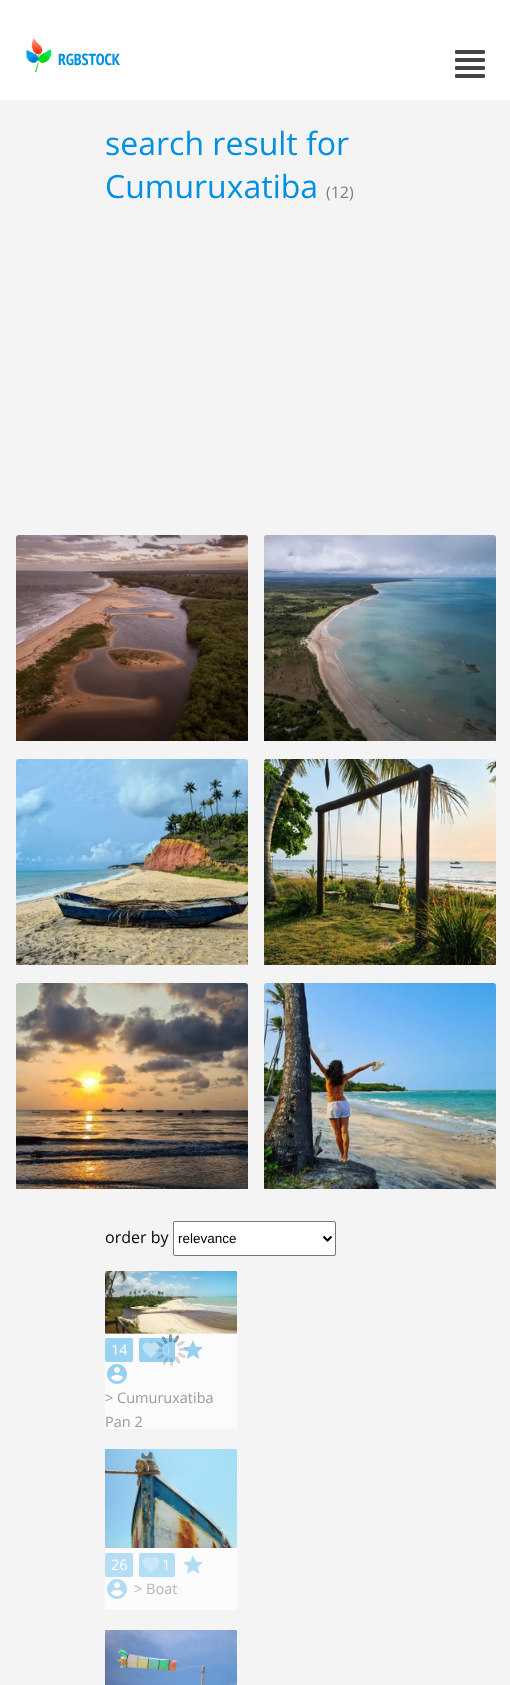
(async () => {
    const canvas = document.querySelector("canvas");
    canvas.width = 510;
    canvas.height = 1685;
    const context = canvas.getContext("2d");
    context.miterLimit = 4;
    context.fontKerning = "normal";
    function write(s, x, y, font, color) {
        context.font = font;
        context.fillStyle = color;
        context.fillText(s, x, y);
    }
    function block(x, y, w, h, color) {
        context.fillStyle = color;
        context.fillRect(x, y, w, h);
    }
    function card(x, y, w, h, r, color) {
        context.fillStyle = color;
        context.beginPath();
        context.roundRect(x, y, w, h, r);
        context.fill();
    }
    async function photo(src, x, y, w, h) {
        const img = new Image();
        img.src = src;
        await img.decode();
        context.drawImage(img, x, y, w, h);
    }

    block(0, 0, 510, 1685, "rgb(244, 244, 244)");
    block(0, 0, 510, 100, "rgb(255, 255, 255)");
    card(455, 50, 30, 4, 1, "rgb(71, 71, 71)");
    card(455, 58, 30, 4, 1, "rgb(71, 71, 71)");
    card(455, 66, 30, 4, 1, "rgb(71, 71, 71)");
    card(455, 74, 30, 4, 1, "rgb(71, 71, 71)");
    await photo("media/1.png", 26, 39, 26, 33);
    write("RGBSTOCK", 58, 65, "bold 16px PT Sans Narrow", "rgb(0, 144, 226)");
    write("search result for", 105, 155, "32px Open Sans", "rgb(0, 144, 226)");
    write("Cumuruxatiba", 105, 198, "32px Open Sans", "rgb(0, 144, 226)");
    write("(12)", 326, 198, "16px Open Sans", "rgb(128, 128, 128)");
    await photo("media/2.png", 16, 535, 232, 206);
    await photo("media/3.png", 264, 535, 232, 206);
    await photo("media/4.png", 16, 759, 232, 206);
    await photo("media/5.png", 264, 759, 232, 206);
    await photo("media/6.png", 16, 983, 232, 206);
    await photo("media/7.png", 264, 983, 232, 206);
    write("order by", 105, 1243, "16px Open Sans", "rgb(0, 0, 0)");
    context.fillStyle = "rgb(255, 255, 255)";
    context.beginPath();
    context.roundRect(173.5, 1221.5, 162, 34, 1.5);
    context.fill();
    context.strokeStyle = "rgb(118, 118, 118)";
    context.stroke();
    context.beginPath();
    context.moveTo(323.5, 1236.5);
    context.lineTo(327.5, 1240.5);
    context.lineTo(331.5, 1236.5);
    context.strokeStyle = "rgb(0, 0, 0)";
    context.lineWidth = 2;
    context.stroke();
    write("relevance", 178, 1243, "13.5px Liberation Sans", "rgb(0, 0, 0)");
    card(105, 1271, 132, 158, 1, "rgb(255, 255, 255)");
    await photo("media/8.png", 155, 1334, 32, 32);
    await photo("media/9.png", 105, 1271, 132, 63);
    block(105, 1333, 132, 96, "rgba(244, 244, 244, 0.4)");
    card(105, 1338, 28, 24, 2, "rgb(153, 211, 243)");
    write("14", 111, 1355, "14.5px Open Sans", "rgb(255, 255, 255)");
    card(139, 1338, 36, 24, 2, "rgba(0, 144, 226, 0.4)");
    await photo("media/10.png", 142, 1342, 18, 16);
    write("0", 162, 1355, "14.5px Open Sans", "rgb(190, 225, 244)");
    await photo("media/11.png", 183, 1340, 20, 19);
    await photo("media/12.png", 107, 1364, 20, 20);
    write("> Cumuruxatiba", 105, 1403, "14.5px Open Sans", "rgb(153, 153, 153)");
    write("Pan 2", 105, 1427, "14.5px Open Sans", "rgb(153, 153, 153)");
    card(105, 1449, 132, 161, 1, "rgb(255, 255, 255)");
    await photo("media/13.png", 105, 1449, 132, 99);
    block(105, 1548, 132, 62, "rgba(244, 244, 244, 0.29)");
    card(105, 1553, 28, 24, 2, "rgb(180, 222, 246)");
    write("26", 111, 1570, "14.5px Open Sans", "rgb(255, 255, 255)");
    card(139, 1553, 36, 24, 2, "rgb(180, 222, 246)");
    await photo("media/14.png", 142, 1557, 18, 16);
    write("1", 162, 1570, "14.5px Open Sans", "rgb(255, 255, 255)");
    await photo("media/15.png", 183, 1555, 20, 19);
    await photo("media/16.png", 107, 1579, 20, 20);
    write("> Boat", 134, 1594, "14.5px Open Sans", "rgb(180, 180, 180)");
    await photo("media/17.png", 105, 1630, 132, 55);
})();
